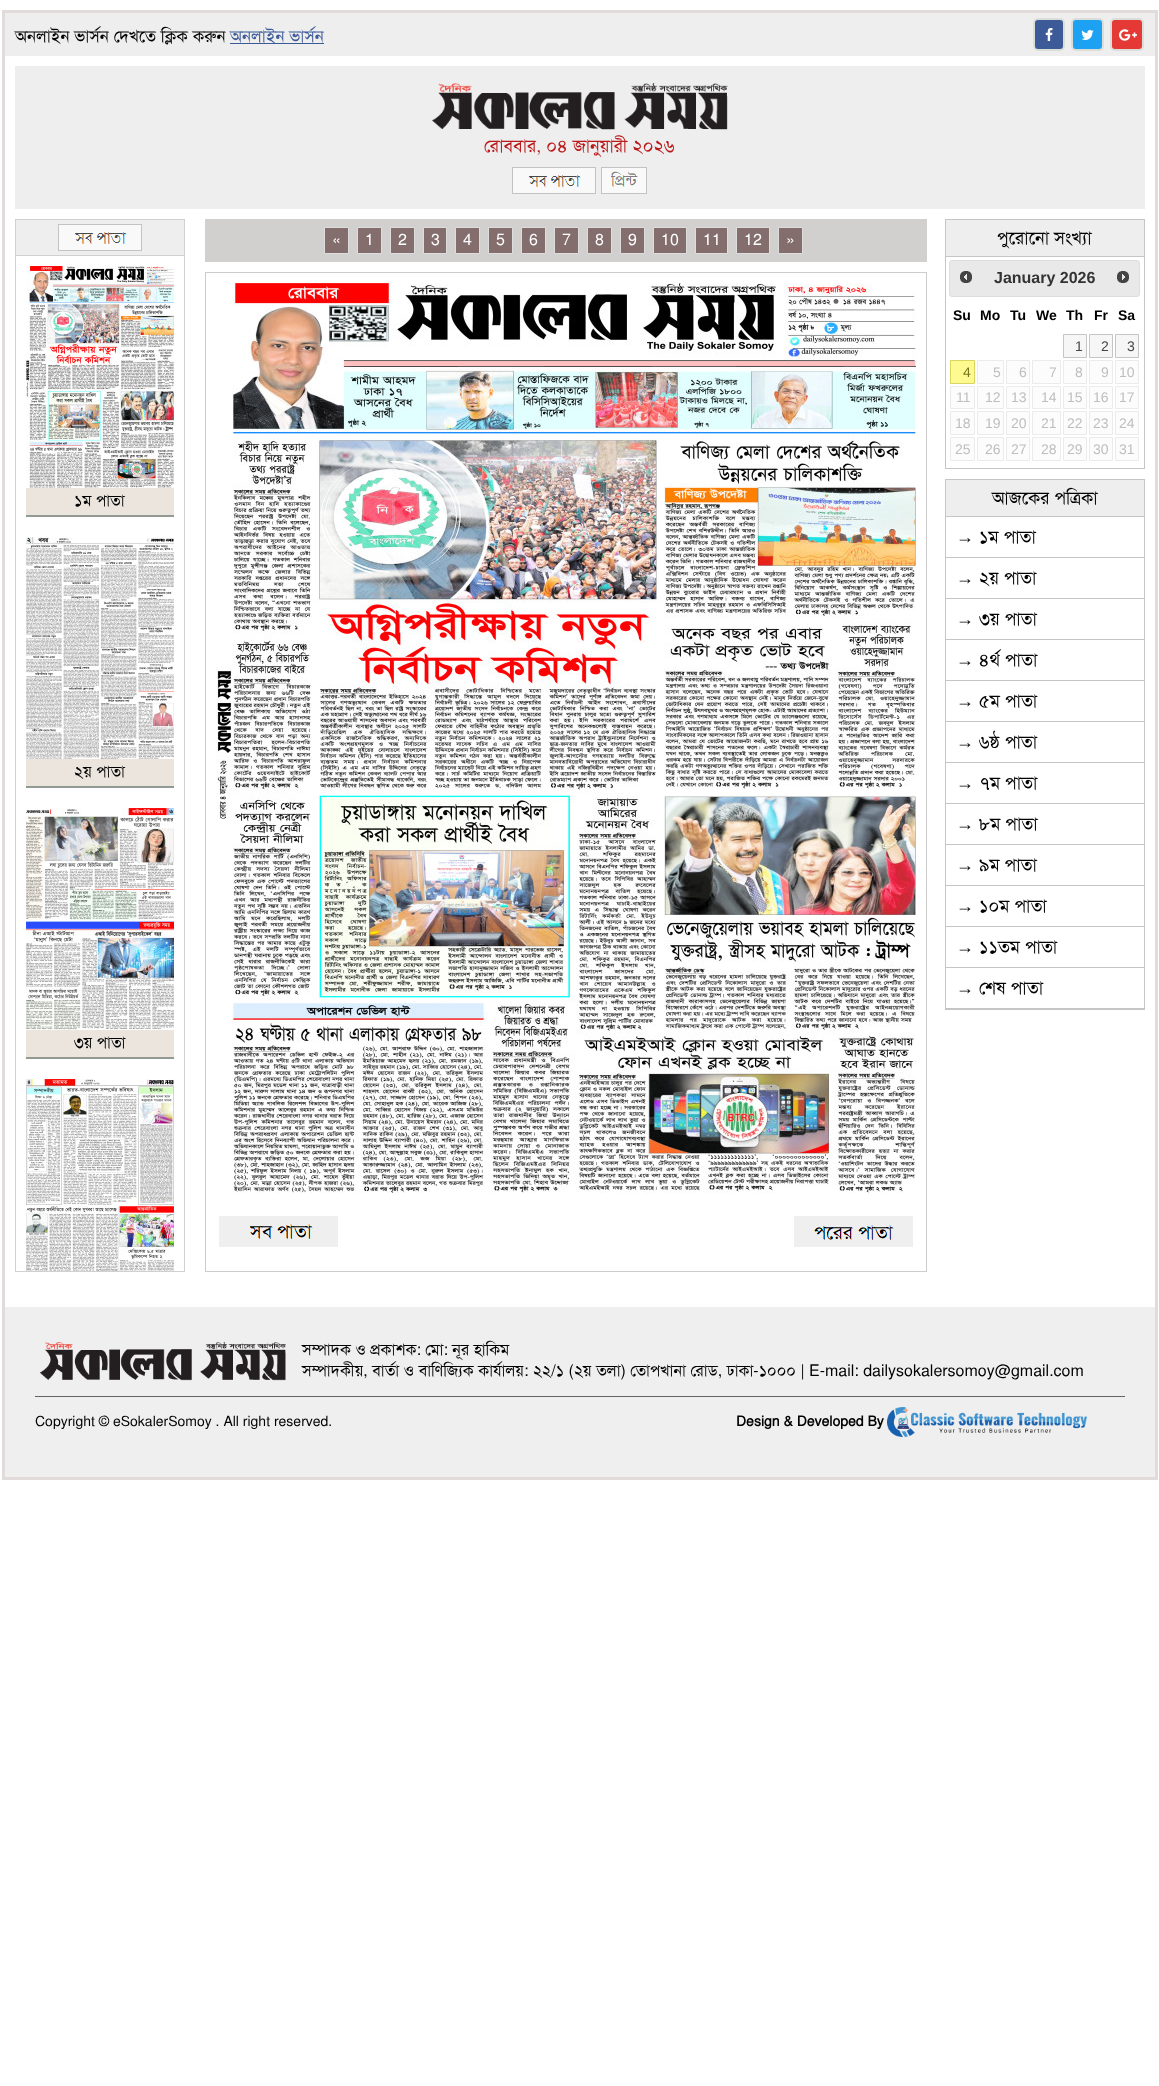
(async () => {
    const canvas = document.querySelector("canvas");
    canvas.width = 1159;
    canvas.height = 2086;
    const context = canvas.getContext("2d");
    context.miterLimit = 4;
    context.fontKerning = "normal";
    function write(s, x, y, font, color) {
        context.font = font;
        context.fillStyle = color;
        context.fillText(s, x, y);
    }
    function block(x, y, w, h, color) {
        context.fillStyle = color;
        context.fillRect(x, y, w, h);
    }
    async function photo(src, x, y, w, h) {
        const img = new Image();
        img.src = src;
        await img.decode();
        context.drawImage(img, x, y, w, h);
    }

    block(0, 0, 1159, 2086, "rgb(255, 255, 255)");
    context.strokeStyle = "rgb(226, 219, 219)";
    context.lineWidth = 3;
    context.strokeRect(3.5, 11.5, 1153, 1467);
    block(5, 13, 1150, 43, "rgb(238, 238, 238)");
    write("অনলাইন ভার্সন দেখতে ক্লিক করুন", 15, 42, "17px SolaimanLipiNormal", "rgb(0, 0, 0)");
    block(230, 43, 94, 1, "rgb(60, 90, 152)");
    write("অনলাইন ভার্সন", 230, 42, "17px SolaimanLipiNormal", "rgb(60, 90, 152)");
    context.beginPath();
    context.roundRect(1034, 19, 30, 31, 4);
    context.fill();
    context.strokeStyle = "rgb(219, 222, 216)";
    context.lineWidth = 2;
    context.stroke();
    await photo("media/1.png", 1045, 28, 8, 13);
    context.fillStyle = "rgb(29, 161, 242)";
    context.beginPath();
    context.roundRect(1072, 19, 31, 31, 4);
    context.fill();
    context.stroke();
    await photo("media/2.png", 1081, 30, 13, 10);
    context.fillStyle = "rgb(229, 57, 53)";
    context.beginPath();
    context.roundRect(1111, 19, 32, 31, 4);
    context.fill();
    context.stroke();
    await photo("media/3.png", 1119, 29, 18, 12);
    block(15, 66, 1130, 143, "rgb(238, 238, 238)");
    await photo("media/4.png", 432, 82, 296, 48);
    write("রোববার, ০৪ জানুয়ারী ২০২৬", 484, 152, "18px SolaimanLipiNormal", "rgb(187, 25, 25)");
    await photo("media/5.png", 512, 167, 84, 27);
    await photo("media/6.png", 601, 167, 46, 27);
    block(205, 219, 722, 43, "rgb(210, 208, 206)");
    context.fillStyle = "rgb(132, 109, 109)";
    context.beginPath();
    context.rect(324.5, 227.5, 24, 26);
    context.fill();
    context.strokeStyle = "rgb(221, 221, 221)";
    context.lineWidth = 1;
    context.stroke();
    write("«", 332, 245, "16px SolaimanLipiNormal", "rgb(255, 255, 255)");
    context.fillStyle = "rgb(132, 109, 109)";
    context.beginPath();
    context.rect(357.5, 227.5, 24, 26);
    context.fill();
    context.stroke();
    write("1", 365, 245, "16px SolaimanLipiNormal", "rgb(255, 255, 255)");
    context.fillStyle = "rgb(132, 109, 109)";
    context.beginPath();
    context.rect(390.5, 227.5, 24, 26);
    context.fill();
    context.stroke();
    write("2", 398, 245, "16px SolaimanLipiNormal", "rgb(255, 255, 255)");
    context.fillStyle = "rgb(132, 109, 109)";
    context.beginPath();
    context.rect(423.5, 227.5, 23, 26);
    context.fill();
    context.stroke();
    write("3", 431, 245, "16px SolaimanLipiNormal", "rgb(255, 255, 255)");
    context.fillStyle = "rgb(132, 109, 109)";
    context.beginPath();
    context.rect(455.5, 227.5, 24, 26);
    context.fill();
    context.stroke();
    write("4", 463, 245, "16px SolaimanLipiNormal", "rgb(255, 255, 255)");
    context.fillStyle = "rgb(132, 109, 109)";
    context.beginPath();
    context.rect(488.5, 227.5, 24, 26);
    context.fill();
    context.stroke();
    write("5", 496, 245, "16px SolaimanLipiNormal", "rgb(255, 255, 255)");
    context.fillStyle = "rgb(132, 109, 109)";
    context.beginPath();
    context.rect(521.5, 227.5, 24, 26);
    context.fill();
    context.stroke();
    write("6", 529, 245, "16px SolaimanLipiNormal", "rgb(255, 255, 255)");
    context.fillStyle = "rgb(132, 109, 109)";
    context.beginPath();
    context.rect(554.5, 227.5, 24, 26);
    context.fill();
    context.stroke();
    write("7", 562, 245, "16px SolaimanLipiNormal", "rgb(255, 255, 255)");
    context.fillStyle = "rgb(132, 109, 109)";
    context.beginPath();
    context.rect(587.5, 227.5, 24, 26);
    context.fill();
    context.stroke();
    write("8", 595, 245, "16px SolaimanLipiNormal", "rgb(255, 255, 255)");
    context.fillStyle = "rgb(132, 109, 109)";
    context.beginPath();
    context.rect(620.5, 227.5, 24, 26);
    context.fill();
    context.stroke();
    write("9", 628, 245, "16px SolaimanLipiNormal", "rgb(255, 255, 255)");
    context.fillStyle = "rgb(132, 109, 109)";
    context.beginPath();
    context.rect(653.5, 227.5, 33, 26);
    context.fill();
    context.stroke();
    write("10", 661, 245, "16px SolaimanLipiNormal", "rgb(255, 255, 255)");
    context.fillStyle = "rgb(132, 109, 109)";
    context.beginPath();
    context.rect(695.5, 227.5, 32, 26);
    context.fill();
    context.stroke();
    write("11", 703, 245, "16px SolaimanLipiNormal", "rgb(255, 255, 255)");
    context.fillStyle = "rgb(132, 109, 109)";
    context.beginPath();
    context.rect(736.5, 227.5, 33, 26);
    context.fill();
    context.stroke();
    write("12", 744, 245, "16px SolaimanLipiNormal", "rgb(255, 255, 255)");
    context.fillStyle = "rgb(132, 109, 109)";
    context.beginPath();
    context.rect(778.5, 227.5, 24, 26);
    context.fill();
    context.stroke();
    write("»", 786, 245, "16px SolaimanLipiNormal", "rgb(255, 255, 255)");
    context.strokeStyle = "rgb(204, 204, 204)";
    context.strokeRect(205.5, 272.5, 721, 999);
    await photo("media/7.png", 216, 283, 700, 910);
    await photo("media/8.png", 219, 1216, 119, 31);
    await photo("media/9.png", 794, 1216, 119, 31);
    block(946, 220, 198, 36, "rgb(238, 238, 238)");
    block(945, 219, 200, 1, "rgb(197, 197, 197)");
    block(1144, 219, 1, 37, "rgb(197, 197, 197)");
    block(945, 219, 1, 37, "rgb(197, 197, 197)");
    write("পুরোনো সংখ্যা", 997, 244, "18px SolaimanLipiNormal", "rgb(0, 0, 0)");
    context.strokeStyle = "rgb(197, 197, 197)";
    context.strokeRect(945.5, 256.5, 199, 212);
    context.fillStyle = "rgb(233, 233, 233)";
    context.beginPath();
    context.roundRect(949.5, 260.5, 190, 36, 2.5);
    context.fill();
    context.strokeStyle = "rgb(221, 221, 221)";
    context.stroke();
    await photo("media/10.png", 960, 271, 12, 12);
    write("January 2026", 994, 283, "bold 16px Liberation Sans", "rgb(51, 51, 51)");
    await photo("media/11.png", 1117, 271, 12, 12);
    write("Su", 953, 320, "bold 14px Liberation Sans", "rgb(0, 0, 0)");
    write("Mo", 980, 320, "bold 14px Liberation Sans", "rgb(0, 0, 0)");
    write("Tu", 1010, 320, "bold 14px Liberation Sans", "rgb(0, 0, 0)");
    write("We", 1036, 320, "bold 14px Liberation Sans", "rgb(0, 0, 0)");
    write("Th", 1066, 320, "bold 14px Liberation Sans", "rgb(0, 0, 0)");
    write("Fr", 1094, 320, "bold 14px Liberation Sans", "rgb(0, 0, 0)");
    write("Sa", 1118, 320, "bold 14px Liberation Sans", "rgb(0, 0, 0)");
    context.fillStyle = "rgb(246, 246, 246)";
    context.beginPath();
    context.rect(1063.5, 334.5, 23, 23);
    context.fill();
    context.strokeStyle = "rgb(197, 197, 197)";
    context.stroke();
    write("1", 1075, 351, "14px Liberation Sans", "rgb(69, 69, 69)");
    context.fillStyle = "rgb(246, 246, 246)";
    context.beginPath();
    context.rect(1089.5, 334.5, 23, 23);
    context.fill();
    context.stroke();
    write("2", 1101, 351, "14px Liberation Sans", "rgb(69, 69, 69)");
    context.fillStyle = "rgb(246, 246, 246)";
    context.beginPath();
    context.rect(1115.5, 334.5, 23, 23);
    context.fill();
    context.stroke();
    write("3", 1127, 351, "14px Liberation Sans", "rgb(69, 69, 69)");
    context.fillStyle = "rgb(255, 250, 144)";
    context.beginPath();
    context.rect(950.5, 360.5, 24, 23);
    context.fill();
    context.strokeStyle = "rgb(218, 213, 94)";
    context.stroke();
    write("4", 963, 377, "14px Liberation Sans", "rgb(119, 118, 32)");
    context.fillStyle = "rgb(252, 252, 252)";
    context.beginPath();
    context.rect(977.5, 360.5, 26, 23);
    context.fill();
    context.strokeStyle = "rgb(235, 235, 235)";
    context.stroke();
    write("5", 993, 377, "14px Liberation Sans", "rgb(190, 190, 190)");
    context.fillStyle = "rgb(252, 252, 252)";
    context.beginPath();
    context.rect(1006.5, 360.5, 23, 23);
    context.fill();
    context.stroke();
    write("6", 1019, 377, "14px Liberation Sans", "rgb(190, 190, 190)");
    context.fillStyle = "rgb(252, 252, 252)";
    context.beginPath();
    context.rect(1032.5, 360.5, 28, 23);
    context.fill();
    context.stroke();
    write("7", 1049, 377, "14px Liberation Sans", "rgb(190, 190, 190)");
    context.fillStyle = "rgb(252, 252, 252)";
    context.beginPath();
    context.rect(1063.5, 360.5, 23, 23);
    context.fill();
    context.stroke();
    write("8", 1075, 377, "14px Liberation Sans", "rgb(190, 190, 190)");
    context.fillStyle = "rgb(252, 252, 252)";
    context.beginPath();
    context.rect(1089.5, 360.5, 23, 23);
    context.fill();
    context.stroke();
    write("9", 1101, 377, "14px Liberation Sans", "rgb(190, 190, 190)");
    context.fillStyle = "rgb(252, 252, 252)";
    context.beginPath();
    context.rect(1115.5, 360.5, 23, 23);
    context.fill();
    context.stroke();
    write("10", 1119, 377, "14px Liberation Sans", "rgb(190, 190, 190)");
    context.fillStyle = "rgb(252, 252, 252)";
    context.beginPath();
    context.rect(950.5, 386.5, 24, 22);
    context.fill();
    context.stroke();
    write("11", 956, 402, "14px Liberation Sans", "rgb(190, 190, 190)");
    context.fillStyle = "rgb(252, 252, 252)";
    context.beginPath();
    context.rect(977.5, 386.5, 26, 22);
    context.fill();
    context.stroke();
    write("12", 985, 402, "14px Liberation Sans", "rgb(190, 190, 190)");
    context.fillStyle = "rgb(252, 252, 252)";
    context.beginPath();
    context.rect(1006.5, 386.5, 23, 22);
    context.fill();
    context.stroke();
    write("13", 1011, 402, "14px Liberation Sans", "rgb(190, 190, 190)");
    context.fillStyle = "rgb(252, 252, 252)";
    context.beginPath();
    context.rect(1032.5, 386.5, 28, 22);
    context.fill();
    context.stroke();
    write("14", 1041, 402, "14px Liberation Sans", "rgb(190, 190, 190)");
    context.fillStyle = "rgb(252, 252, 252)";
    context.beginPath();
    context.rect(1063.5, 386.5, 23, 22);
    context.fill();
    context.stroke();
    write("15", 1067, 402, "14px Liberation Sans", "rgb(190, 190, 190)");
    context.fillStyle = "rgb(252, 252, 252)";
    context.beginPath();
    context.rect(1089.5, 386.5, 23, 22);
    context.fill();
    context.stroke();
    write("16", 1093, 402, "14px Liberation Sans", "rgb(190, 190, 190)");
    context.fillStyle = "rgb(252, 252, 252)";
    context.beginPath();
    context.rect(1115.5, 386.5, 23, 22);
    context.fill();
    context.stroke();
    write("17", 1119, 402, "14px Liberation Sans", "rgb(190, 190, 190)");
    context.fillStyle = "rgb(252, 252, 252)";
    context.beginPath();
    context.rect(950.5, 411.5, 24, 23);
    context.fill();
    context.stroke();
    write("18", 955, 428, "14px Liberation Sans", "rgb(190, 190, 190)");
    context.fillStyle = "rgb(252, 252, 252)";
    context.beginPath();
    context.rect(977.5, 411.5, 26, 23);
    context.fill();
    context.stroke();
    write("19", 985, 428, "14px Liberation Sans", "rgb(190, 190, 190)");
    context.fillStyle = "rgb(252, 252, 252)";
    context.beginPath();
    context.rect(1006.5, 411.5, 23, 23);
    context.fill();
    context.stroke();
    write("20", 1011, 428, "14px Liberation Sans", "rgb(190, 190, 190)");
    context.fillStyle = "rgb(252, 252, 252)";
    context.beginPath();
    context.rect(1032.5, 411.5, 28, 23);
    context.fill();
    context.stroke();
    write("21", 1041, 428, "14px Liberation Sans", "rgb(190, 190, 190)");
    context.fillStyle = "rgb(252, 252, 252)";
    context.beginPath();
    context.rect(1063.5, 411.5, 23, 23);
    context.fill();
    context.stroke();
    write("22", 1067, 428, "14px Liberation Sans", "rgb(190, 190, 190)");
    context.fillStyle = "rgb(252, 252, 252)";
    context.beginPath();
    context.rect(1089.5, 411.5, 23, 23);
    context.fill();
    context.stroke();
    write("23", 1093, 428, "14px Liberation Sans", "rgb(190, 190, 190)");
    context.fillStyle = "rgb(252, 252, 252)";
    context.beginPath();
    context.rect(1115.5, 411.5, 23, 23);
    context.fill();
    context.stroke();
    write("24", 1119, 428, "14px Liberation Sans", "rgb(190, 190, 190)");
    context.fillStyle = "rgb(252, 252, 252)";
    context.beginPath();
    context.rect(950.5, 437.5, 24, 23);
    context.fill();
    context.stroke();
    write("25", 955, 454, "14px Liberation Sans", "rgb(190, 190, 190)");
    context.fillStyle = "rgb(252, 252, 252)";
    context.beginPath();
    context.rect(977.5, 437.5, 26, 23);
    context.fill();
    context.stroke();
    write("26", 985, 454, "14px Liberation Sans", "rgb(190, 190, 190)");
    context.fillStyle = "rgb(252, 252, 252)";
    context.beginPath();
    context.rect(1006.5, 437.5, 23, 23);
    context.fill();
    context.stroke();
    write("27", 1011, 454, "14px Liberation Sans", "rgb(190, 190, 190)");
    context.fillStyle = "rgb(252, 252, 252)";
    context.beginPath();
    context.rect(1032.5, 437.5, 28, 23);
    context.fill();
    context.stroke();
    write("28", 1041, 454, "14px Liberation Sans", "rgb(190, 190, 190)");
    context.fillStyle = "rgb(252, 252, 252)";
    context.beginPath();
    context.rect(1063.5, 437.5, 23, 23);
    context.fill();
    context.stroke();
    write("29", 1067, 454, "14px Liberation Sans", "rgb(190, 190, 190)");
    context.fillStyle = "rgb(252, 252, 252)";
    context.beginPath();
    context.rect(1089.5, 437.5, 23, 23);
    context.fill();
    context.stroke();
    write("30", 1093, 454, "14px Liberation Sans", "rgb(190, 190, 190)");
    context.fillStyle = "rgb(252, 252, 252)";
    context.beginPath();
    context.rect(1115.5, 437.5, 23, 23);
    context.fill();
    context.stroke();
    write("31", 1119, 454, "14px Liberation Sans", "rgb(190, 190, 190)");
    block(946, 480, 198, 36, "rgb(238, 238, 238)");
    block(945, 479, 200, 1, "rgb(197, 197, 197)");
    block(1144, 479, 1, 37, "rgb(197, 197, 197)");
    block(945, 479, 1, 37, "rgb(197, 197, 197)");
    write("আজকের পত্রিকা", 992, 504, "18px SolaimanLipiNormal", "rgb(0, 0, 0)");
    context.strokeStyle = "rgb(197, 197, 197)";
    context.strokeRect(945.5, 516.5, 199, 493);
    block(946, 557, 198, 1, "rgb(197, 197, 197)");
    write("→", 956, 543, "18px Liberation Serif", "rgb(0, 0, 0)");
    write("১ম পাতা", 979, 543, "18px SolaimanLipiNormal", "rgb(0, 0, 0)");
    block(946, 598, 198, 1, "rgb(197, 197, 197)");
    write("→", 956, 584, "18px Liberation Serif", "rgb(0, 0, 0)");
    write("২য় পাতা", 979, 584, "18px SolaimanLipiNormal", "rgb(0, 0, 0)");
    block(946, 639, 198, 1, "rgb(197, 197, 197)");
    write("→", 956, 625, "18px Liberation Serif", "rgb(0, 0, 0)");
    write("৩য় পাতা", 979, 625, "18px SolaimanLipiNormal", "rgb(0, 0, 0)");
    block(946, 680, 198, 1, "rgb(197, 197, 197)");
    write("→", 956, 666, "18px Liberation Serif", "rgb(0, 0, 0)");
    write("৪র্থ পাতা", 979, 666, "18px SolaimanLipiNormal", "rgb(0, 0, 0)");
    block(946, 721, 198, 1, "rgb(197, 197, 197)");
    write("→", 956, 707, "18px Liberation Serif", "rgb(0, 0, 0)");
    write("৫ম পাতা", 979, 707, "18px SolaimanLipiNormal", "rgb(0, 0, 0)");
    block(946, 762, 198, 1, "rgb(197, 197, 197)");
    write("→", 956, 748, "18px Liberation Serif", "rgb(0, 0, 0)");
    write("৬ষ্ঠ পাতা", 979, 748, "18px SolaimanLipiNormal", "rgb(0, 0, 0)");
    block(946, 803, 198, 1, "rgb(197, 197, 197)");
    write("→", 956, 789, "18px Liberation Serif", "rgb(0, 0, 0)");
    write("৭ম পাতা", 979, 789, "18px SolaimanLipiNormal", "rgb(0, 0, 0)");
    block(946, 844, 198, 1, "rgb(197, 197, 197)");
    write("→", 956, 830, "18px Liberation Serif", "rgb(0, 0, 0)");
    write("৮ম পাতা", 979, 830, "18px SolaimanLipiNormal", "rgb(0, 0, 0)");
    block(946, 885, 198, 1, "rgb(197, 197, 197)");
    write("→", 956, 871, "18px Liberation Serif", "rgb(0, 0, 0)");
    write("৯ম পাতা", 979, 871, "18px SolaimanLipiNormal", "rgb(0, 0, 0)");
    block(946, 926, 198, 1, "rgb(197, 197, 197)");
    write("→", 956, 912, "18px Liberation Serif", "rgb(0, 0, 0)");
    write("১০ম পাতা", 979, 912, "18px SolaimanLipiNormal", "rgb(0, 0, 0)");
    block(946, 967, 198, 1, "rgb(197, 197, 197)");
    write("→", 956, 953, "18px Liberation Serif", "rgb(0, 0, 0)");
    write("১১তম পাতা", 979, 953, "18px SolaimanLipiNormal", "rgb(0, 0, 0)");
    block(946, 1008, 198, 1, "rgb(197, 197, 197)");
    write("→", 956, 994, "18px Liberation Serif", "rgb(0, 0, 0)");
    write("শেষ পাতা", 979, 994, "18px SolaimanLipiNormal", "rgb(0, 0, 0)");
    block(16, 220, 168, 35, "rgb(238, 238, 238)");
    block(15, 219, 170, 1, "rgb(210, 208, 206)");
    block(184, 219, 1, 36, "rgb(210, 208, 206)");
    block(15, 219, 1, 36, "rgb(210, 208, 206)");
    await photo("media/5.png", 58, 224, 84, 27);
    context.strokeStyle = "rgb(210, 208, 206)";
    context.strokeRect(15.5, 255.5, 169, 1016);
    await photo("media/12.png", 26, 266, 148, 222);
    block(26, 488, 148, 27, "rgb(235, 229, 222)");
    block(26, 515, 148, 2, "rgb(147, 153, 147)");
    write("১ম পাতা", 74, 506, "16px SolaimanLipiNormal", "rgb(0, 0, 0)");
    await photo("media/13.png", 26, 537, 148, 222);
    block(26, 759, 148, 27, "rgb(235, 229, 222)");
    block(26, 786, 148, 2, "rgb(147, 153, 147)");
    write("২য় পাতা", 74, 777, "16px SolaimanLipiNormal", "rgb(0, 0, 0)");
    await photo("media/14.png", 26, 808, 148, 222);
    block(26, 1030, 148, 27, "rgb(235, 229, 222)");
    block(26, 1057, 148, 2, "rgb(147, 153, 147)");
    write("৩য় পাতা", 74, 1048, "16px SolaimanLipiNormal", "rgb(0, 0, 0)");
    await photo("media/15.png", 26, 1079, 148, 192);
    block(5, 1307, 1150, 170, "rgb(239, 239, 239)");
    await photo("media/16.png", 40, 1341, 246, 40);
    write("সম্পাদক ও প্রকাশক: মো: নূর হাকিম", 302, 1355, "16px SolaimanLipiNormal", "rgb(0, 0, 0)");
    write("সম্পাদকীয়, বার্তা ও বাণিজ্যিক কার্যালয়: ২২/১ (২য় তলা) তোপখানা রোড, ঢাকা-১০০০ | E-mail: dailysokalersomoy@gmail.com", 302, 1376, "16px SolaimanLipiNormal", "rgb(0, 0, 0)");
    block(35, 1396, 1090, 1, "rgb(99, 99, 99)");
    write("Copyright © eSokalerSomoy . All right reserved.", 35, 1426, "14px SolaimanLipiNormal", "rgb(0, 0, 0)");
    write("Design & Developed By", 736, 1426, "bold 14px SolaimanLipiNormal", "rgb(0, 0, 0)");
    await photo("media/17.png", 887, 1407, 200, 30);
})();
